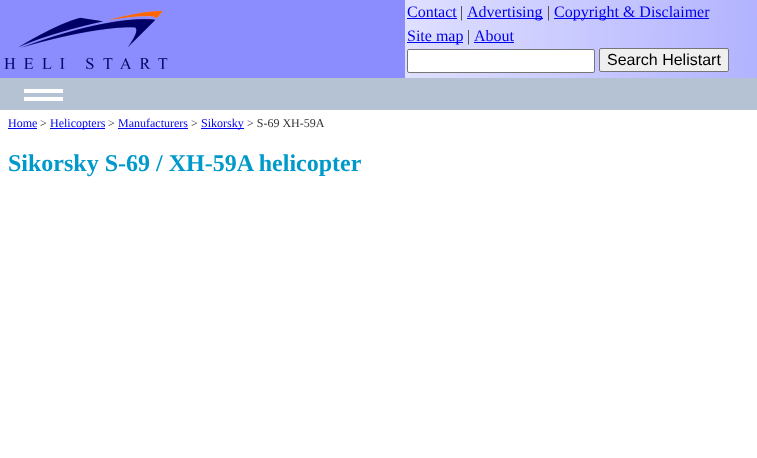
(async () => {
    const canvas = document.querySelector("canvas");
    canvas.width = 757;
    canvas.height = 458;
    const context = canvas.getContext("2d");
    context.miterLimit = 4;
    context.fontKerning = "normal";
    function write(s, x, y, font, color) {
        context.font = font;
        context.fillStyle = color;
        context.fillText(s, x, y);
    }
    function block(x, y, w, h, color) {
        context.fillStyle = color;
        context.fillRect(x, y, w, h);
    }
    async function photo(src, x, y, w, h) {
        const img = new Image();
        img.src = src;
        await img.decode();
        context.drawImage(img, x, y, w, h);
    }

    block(0, 0, 757, 458, "rgb(255, 255, 255)");
    await photo("media/1.png", 0, 0, 405, 78);
    await photo("media/2.png", 405, 0, 352, 78);
    write("Contact", 407, 17, "16px Liberation Serif", "rgb(0, 0, 238)");
    block(407, 18, 50, 1, "rgb(0, 0, 238)");
    write("|", 460, 17, "16px Liberation Serif", "rgb(51, 51, 51)");
    block(467, 18, 76, 1, "rgb(0, 0, 238)");
    write("Advertising", 467, 17, "16px Liberation Serif", "rgb(0, 0, 238)");
    write("|", 547, 17, "16px Liberation Serif", "rgb(51, 51, 51)");
    block(554, 18, 155, 1, "rgb(0, 0, 238)");
    write("Copyright & Disclaimer", 554, 17, "16px Liberation Serif", "rgb(0, 0, 238)");
    block(407, 42, 56, 1, "rgb(0, 0, 238)");
    write("Site map", 407, 41, "16px Liberation Serif", "rgb(0, 0, 238)");
    write("|", 467, 41, "16px Liberation Serif", "rgb(51, 51, 51)");
    write("About", 474, 41, "16px Liberation Serif", "rgb(0, 0, 238)");
    block(474, 42, 40, 1, "rgb(0, 0, 238)");
    context.fillStyle = "rgb(255, 255, 255)";
    context.beginPath();
    context.roundRect(407.5, 49.5, 187, 23, 1.5);
    context.fill();
    context.strokeStyle = "rgb(118, 118, 118)";
    context.stroke();
    context.fillStyle = "rgb(239, 239, 239)";
    context.beginPath();
    context.roundRect(599.5, 48.5, 129, 23, 1.5);
    context.fill();
    context.stroke();
    write("Search Helistart", 607, 65, "16px Liberation Sans", "rgb(0, 0, 0)");
    block(0, 78, 757, 32, "rgb(181, 194, 211)");
    block(24, 89, 39, 4, "rgb(255, 255, 255)");
    block(24, 97, 39, 4, "rgb(255, 255, 255)");
    write("Home", 8, 127, "12px Liberation Serif", "rgb(0, 0, 238)");
    block(8, 128, 29, 1, "rgb(0, 0, 238)");
    write(">", 40, 127, "12px Liberation Serif", "rgb(51, 51, 51)");
    block(50, 128, 55, 1, "rgb(0, 0, 238)");
    write("Helicopters", 50, 127, "12px Liberation Serif", "rgb(0, 0, 238)");
    write(">", 108, 127, "12px Liberation Serif", "rgb(51, 51, 51)");
    write("Manufacturers", 118, 127, "12px Liberation Serif", "rgb(0, 0, 238)");
    block(118, 128, 70, 1, "rgb(0, 0, 238)");
    write(">", 191, 127, "12px Liberation Serif", "rgb(51, 51, 51)");
    block(201, 128, 43, 1, "rgb(0, 0, 238)");
    write("Sikorsky", 201, 127, "12px Liberation Serif", "rgb(0, 0, 238)");
    write("> S-69 XH-59A", 247, 127, "12px Liberation Serif", "rgb(51, 51, 51)");
    write("Sikorsky S-69 / XH-59A helicopter", 8, 171, "bold 24px Liberation Serif", "rgb(0, 153, 204)");
})();
